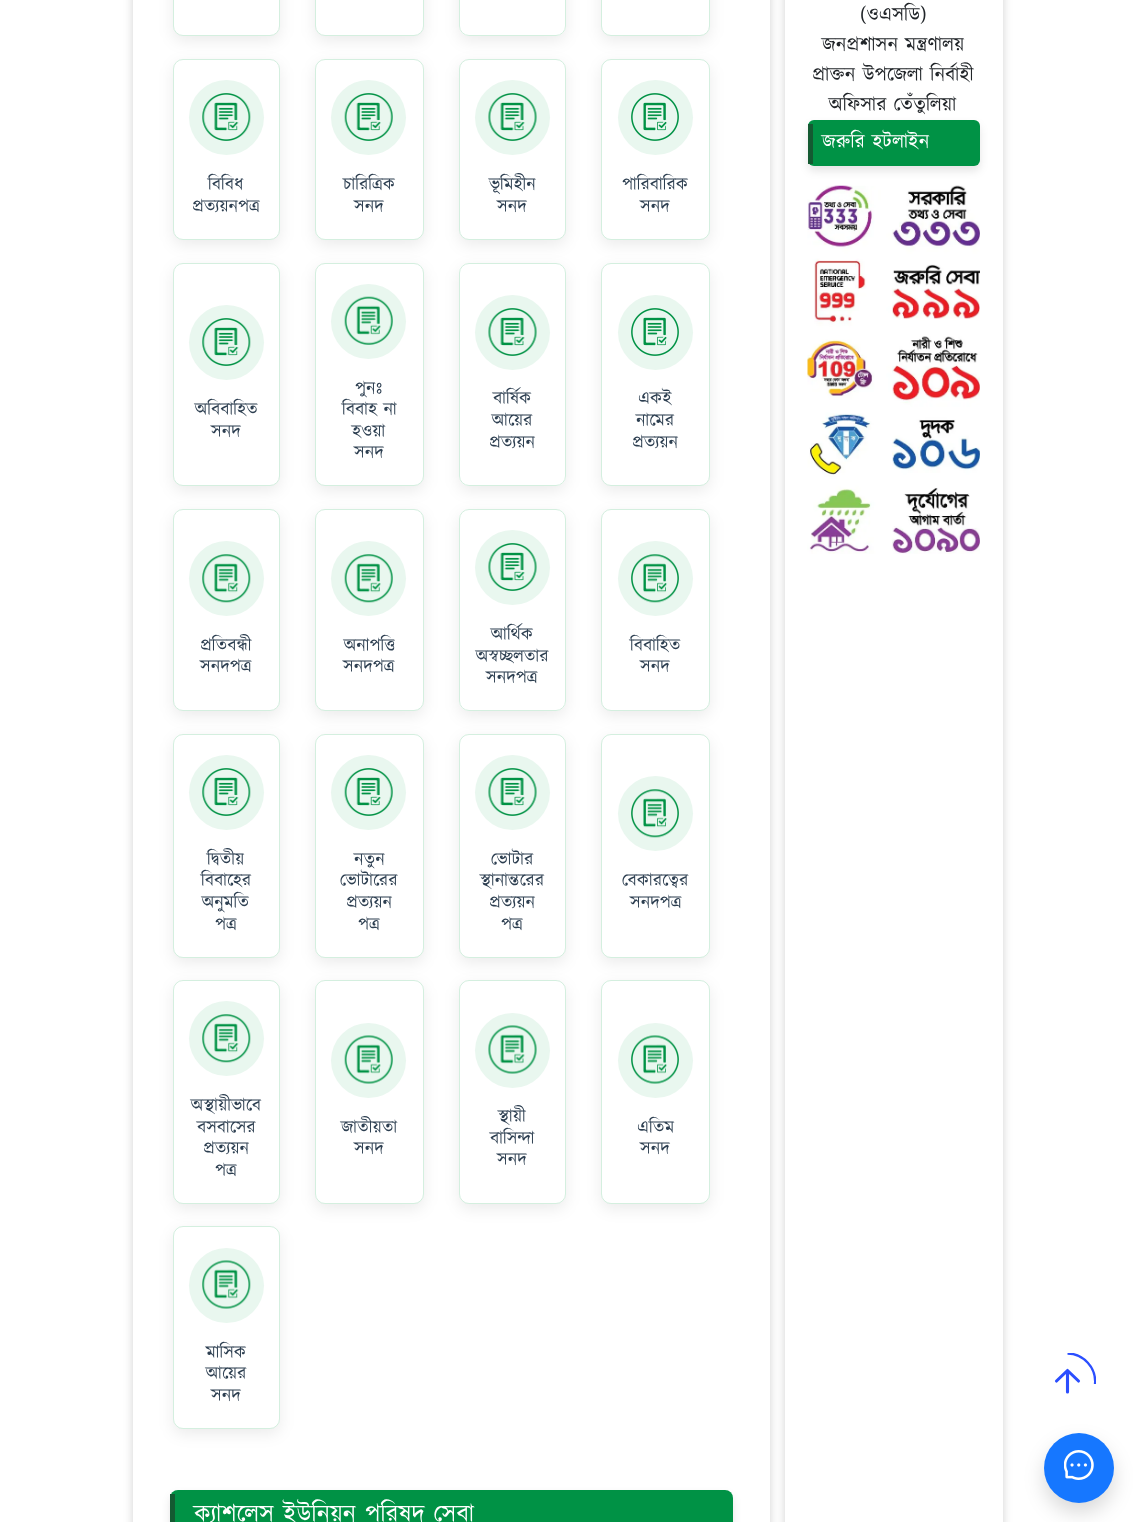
(async () => {
    const canvas = document.querySelector("canvas");
    canvas.width = 1133;
    canvas.height = 1522;
    const context = canvas.getContext("2d");
    context.miterLimit = 4;
    context.fontKerning = "normal";
    function write(s, x, y, font, color) {
        context.font = font;
        context.fillStyle = color;
        context.fillText(s, x, y);
    }
    function block(x, y, w, h, color) {
        context.fillStyle = color;
        context.fillRect(x, y, w, h);
    }
    function card(x, y, w, h, r, color) {
        context.fillStyle = color;
        context.beginPath();
        context.roundRect(x, y, w, h, r);
        context.fill();
    }
    async function photo(src, x, y, w, h) {
        const img = new Image();
        img.src = src;
        await img.decode();
        context.drawImage(img, x, y, w, h);
    }

    block(0, 0, 1133, 1522, "rgb(255, 255, 255)");
    context.save();
    context.beginPath();
    context.moveTo(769, 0);
    context.lineTo(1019, 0);
    context.lineTo(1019, 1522);
    context.lineTo(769, 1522);
    context.closePath();
    context.moveTo(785, -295);
    context.lineTo(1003, -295);
    context.lineTo(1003, 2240);
    context.lineTo(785, 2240);
    context.closePath();
    context.clip("evenodd");
    context.fillStyle = "rgba(0, 0, 0, 0.18)";
    context.filter = "blur(5px)";
    context.beginPath();
    context.rect(785, -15, 218, 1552);
    context.fill();
    context.filter = "none";
    context.restore();
    write("(ওএসডি)", 860, 21, "20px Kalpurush", "rgb(33, 37, 41)");
    write("জনপ্রশাসন মন্ত্রণালয়", 822, 51, "20px Kalpurush", "rgb(33, 37, 41)");
    write("প্রাক্তন উপজেলা নির্বাহী", 812, 81, "20px Kalpurush", "rgb(33, 37, 41)");
    context.fillStyle = "rgba(0, 0, 0, 0.1)";
    context.filter = "blur(4px)";
    context.beginPath();
    context.roundRect(808, 125, 172, 46, 6);
    context.fill();
    context.filter = "none";
    write("অফিসার তেঁতুলিয়া", 829, 111, "20px Kalpurush", "rgb(33, 37, 41)");
    card(808, 120, 172, 46, 6, "rgb(0, 146, 69)");
    block(808, 124, 5, 40, "rgb(20, 90, 50)");
    write("জরুরি হটলাইন", 822, 148, "20px Kalpurush", "rgb(255, 255, 255)");
    await photo("media/1.png", 807, 185, 173, 369);
    context.save();
    context.beginPath();
    context.moveTo(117, 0);
    context.lineTo(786, 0);
    context.lineTo(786, 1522);
    context.lineTo(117, 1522);
    context.closePath();
    context.moveTo(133, -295);
    context.lineTo(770, -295);
    context.lineTo(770, 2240);
    context.lineTo(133, 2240);
    context.closePath();
    context.clip("evenodd");
    context.fillStyle = "rgba(0, 0, 0, 0.18)";
    context.filter = "blur(5px)";
    context.beginPath();
    context.rect(133, -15, 637, 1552);
    context.fill();
    context.filter = "none";
    context.restore();
    context.fillStyle = "rgba(0, 0, 0, 0.08)";
    context.filter = "blur(7.5px)";
    context.beginPath();
    context.roundRect(173, -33, 107, 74, 10);
    context.fill();
    context.filter = "none";
    context.fillStyle = "rgb(255, 255, 255)";
    context.beginPath();
    context.roundRect(173.5, -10.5, 106, 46, 9.5);
    context.fill();
    context.strokeStyle = "rgb(212, 239, 223)";
    context.stroke();
    context.fillStyle = "rgba(0, 0, 0, 0.08)";
    context.filter = "blur(7.5px)";
    context.beginPath();
    context.roundRect(315, -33, 109, 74, 10);
    context.fill();
    context.filter = "none";
    context.fillStyle = "rgb(255, 255, 255)";
    context.beginPath();
    context.roundRect(315.5, -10.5, 108, 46, 9.5);
    context.fill();
    context.stroke();
    context.save();
    context.beginPath();
    context.moveTo(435, 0);
    context.lineTo(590, 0);
    context.lineTo(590, 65);
    context.lineTo(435, 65);
    context.closePath();
    context.moveTo(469, -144);
    context.lineTo(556, -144);
    context.bezierCurveTo(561.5, -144, 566, -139.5, 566, -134);
    context.lineTo(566, 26);
    context.bezierCurveTo(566, 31.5, 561.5, 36, 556, 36);
    context.lineTo(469, 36);
    context.bezierCurveTo(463.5, 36, 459, 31.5, 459, 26);
    context.lineTo(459, -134);
    context.bezierCurveTo(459, -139.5, 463.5, -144, 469, -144);
    context.closePath();
    context.clip("evenodd");
    context.fillStyle = "rgba(0, 0, 0, 0.08)";
    context.filter = "blur(7.5px)";
    context.beginPath();
    context.roundRect(459, -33, 107, 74, 10);
    context.fill();
    context.filter = "none";
    context.restore();
    context.beginPath();
    context.roundRect(459.5, -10.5, 106, 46, 9.5);
    context.stroke();
    context.fillStyle = "rgba(0, 0, 0, 0.08)";
    context.filter = "blur(7.5px)";
    context.beginPath();
    context.roundRect(601, -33, 109, 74, 10);
    context.fill();
    context.filter = "none";
    context.fillStyle = "rgb(255, 255, 255)";
    context.beginPath();
    context.roundRect(601.5, -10.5, 108, 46, 9.5);
    context.fill();
    context.stroke();
    context.fillStyle = "rgba(0, 0, 0, 0.08)";
    context.filter = "blur(7.5px)";
    context.beginPath();
    context.roundRect(173, 64, 107, 181, 10);
    context.fill();
    context.filter = "none";
    context.fillStyle = "rgb(255, 255, 255)";
    context.beginPath();
    context.roundRect(173.5, 59.5, 106, 180, 9.5);
    context.fill();
    context.stroke();
    context.fillStyle = "rgb(233, 247, 239)";
    context.beginPath();
    context.arc(226.5, 117.5, 37.5, 0, Math.PI * 2);
    context.fill();
    await photo("media/2.png", 202, 93, 49, 48);
    write("বিবিধ", 208, 190, "18px Kalpurush", "rgb(44, 62, 80)");
    write("প্রত্যয়নপত্র", 192, 212, "18px Kalpurush", "rgb(44, 62, 80)");
    context.fillStyle = "rgba(0, 0, 0, 0.08)";
    context.filter = "blur(7.5px)";
    context.beginPath();
    context.roundRect(315, 64, 109, 181, 10);
    context.fill();
    context.filter = "none";
    card(315, 59, 109, 181, 10, "rgb(255, 255, 255)");
    context.beginPath();
    context.roundRect(315.5, 59.5, 108, 180, 9.5);
    context.strokeStyle = "rgba(39, 174, 96, 0.2)";
    context.stroke();
    context.fillStyle = "rgb(233, 247, 239)";
    context.beginPath();
    context.arc(368.5, 117.5, 37.5, 0, Math.PI * 2);
    context.fill();
    await photo("media/3.png", 344, 93, 49, 48);
    write("চারিত্রিক", 343, 190, "18px Kalpurush", "rgb(44, 62, 80)");
    write("সনদ", 354, 212, "18px Kalpurush", "rgb(44, 62, 80)");
    context.fillStyle = "rgba(0, 0, 0, 0.08)";
    context.filter = "blur(7.5px)";
    context.beginPath();
    context.roundRect(459, 64, 107, 181, 10);
    context.fill();
    context.filter = "none";
    context.fillStyle = "rgb(255, 255, 255)";
    context.beginPath();
    context.roundRect(459.5, 59.5, 106, 180, 9.5);
    context.fill();
    context.strokeStyle = "rgb(212, 239, 223)";
    context.stroke();
    context.fillStyle = "rgb(233, 247, 239)";
    context.beginPath();
    context.arc(512.5, 117.5, 37.5, 0, Math.PI * 2);
    context.fill();
    await photo("media/4.png", 488, 93, 49, 48);
    write("ভূমিহীন", 489, 190, "18px Kalpurush", "rgb(44, 62, 80)");
    write("সনদ", 497, 212, "18px Kalpurush", "rgb(44, 62, 80)");
    context.fillStyle = "rgba(0, 0, 0, 0.08)";
    context.filter = "blur(7.5px)";
    context.beginPath();
    context.roundRect(601, 64, 109, 181, 10);
    context.fill();
    context.filter = "none";
    card(601, 59, 109, 181, 10, "rgb(255, 255, 255)");
    context.beginPath();
    context.roundRect(601.5, 59.5, 108, 180, 9.5);
    context.strokeStyle = "rgba(39, 174, 96, 0.2)";
    context.stroke();
    context.fillStyle = "rgb(233, 247, 239)";
    context.beginPath();
    context.arc(655.5, 117.5, 37.5, 0, Math.PI * 2);
    context.fill();
    await photo("media/5.png", 631, 93, 48, 48);
    write("পারিবারিক", 622, 190, "18px Kalpurush", "rgb(44, 62, 80)");
    write("সনদ", 640, 212, "18px Kalpurush", "rgb(44, 62, 80)");
    context.fillStyle = "rgba(0, 0, 0, 0.08)";
    context.filter = "blur(7.5px)";
    context.beginPath();
    context.roundRect(173, 268, 107, 223, 10);
    context.fill();
    context.filter = "none";
    context.fillStyle = "rgb(255, 255, 255)";
    context.beginPath();
    context.roundRect(173.5, 263.5, 106, 222, 9.5);
    context.fill();
    context.strokeStyle = "rgb(212, 239, 223)";
    context.stroke();
    context.fillStyle = "rgb(233, 247, 239)";
    context.beginPath();
    context.arc(226.5, 342.5, 37.5, 0, Math.PI * 2);
    context.fill();
    await photo("media/2.png", 202, 318, 49, 48);
    write("অবিবাহিত", 195, 415, "18px Kalpurush", "rgb(44, 62, 80)");
    write("সনদ", 211, 437, "18px Kalpurush", "rgb(44, 62, 80)");
    context.fillStyle = "rgba(0, 0, 0, 0.08)";
    context.filter = "blur(7.5px)";
    context.beginPath();
    context.roundRect(315, 268, 109, 223, 10);
    context.fill();
    context.filter = "none";
    context.fillStyle = "rgb(255, 255, 255)";
    context.beginPath();
    context.roundRect(315.5, 263.5, 108, 222, 9.5);
    context.fill();
    context.stroke();
    context.fillStyle = "rgb(233, 247, 239)";
    context.beginPath();
    context.arc(368.5, 321.5, 37.5, 0, Math.PI * 2);
    context.fill();
    await photo("media/6.png", 344, 296, 49, 49);
    write("পুনঃ", 355, 394, "18px Kalpurush", "rgb(44, 62, 80)");
    write("বিবাহ না", 342, 415, "18px Kalpurush", "rgb(44, 62, 80)");
    write("হওয়া", 352, 437, "18px Kalpurush", "rgb(44, 62, 80)");
    write("সনদ", 354, 458, "18px Kalpurush", "rgb(44, 62, 80)");
    context.save();
    context.beginPath();
    context.moveTo(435, 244);
    context.lineTo(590, 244);
    context.lineTo(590, 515);
    context.lineTo(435, 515);
    context.closePath();
    context.moveTo(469, 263);
    context.lineTo(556, 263);
    context.bezierCurveTo(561.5, 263, 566, 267.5, 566, 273);
    context.lineTo(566, 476);
    context.bezierCurveTo(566, 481.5, 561.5, 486, 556, 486);
    context.lineTo(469, 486);
    context.bezierCurveTo(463.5, 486, 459, 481.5, 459, 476);
    context.lineTo(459, 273);
    context.bezierCurveTo(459, 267.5, 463.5, 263, 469, 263);
    context.closePath();
    context.clip("evenodd");
    context.fillStyle = "rgba(0, 0, 0, 0.08)";
    context.filter = "blur(7.5px)";
    context.beginPath();
    context.roundRect(459, 268, 107, 223, 10);
    context.fill();
    context.filter = "none";
    context.restore();
    context.beginPath();
    context.roundRect(459.5, 263.5, 106, 222, 9.5);
    context.stroke();
    context.fillStyle = "rgb(233, 247, 239)";
    context.beginPath();
    context.arc(512.5, 332.5, 37.5, 0, Math.PI * 2);
    context.fill();
    await photo("media/4.png", 488, 308, 49, 48);
    write("বার্ষিক", 493, 404, "18px Kalpurush", "rgb(44, 62, 80)");
    write("আয়ের", 492, 426, "18px Kalpurush", "rgb(44, 62, 80)");
    write("প্রত্যয়ন", 489, 448, "18px Kalpurush", "rgb(44, 62, 80)");
    context.fillStyle = "rgba(0, 0, 0, 0.08)";
    context.filter = "blur(7.5px)";
    context.beginPath();
    context.roundRect(601, 268, 109, 223, 10);
    context.fill();
    context.filter = "none";
    context.fillStyle = "rgb(255, 255, 255)";
    context.beginPath();
    context.roundRect(601.5, 263.5, 108, 222, 9.5);
    context.fill();
    context.stroke();
    context.fillStyle = "rgb(233, 247, 239)";
    context.beginPath();
    context.arc(655.5, 332.5, 37.5, 0, Math.PI * 2);
    context.fill();
    await photo("media/5.png", 631, 308, 48, 48);
    write("একই", 638, 404, "18px Kalpurush", "rgb(44, 62, 80)");
    write("নামের", 636, 426, "18px Kalpurush", "rgb(44, 62, 80)");
    write("প্রত্যয়ন", 632, 448, "18px Kalpurush", "rgb(44, 62, 80)");
    context.fillStyle = "rgba(0, 0, 0, 0.08)";
    context.filter = "blur(7.5px)";
    context.beginPath();
    context.roundRect(173, 514, 107, 202, 10);
    context.fill();
    context.filter = "none";
    context.fillStyle = "rgb(255, 255, 255)";
    context.beginPath();
    context.roundRect(173.5, 509.5, 106, 201, 9.5);
    context.fill();
    context.stroke();
    context.fillStyle = "rgb(233, 247, 239)";
    context.beginPath();
    context.arc(226.5, 578.5, 37.5, 0, Math.PI * 2);
    context.fill();
    await photo("media/7.png", 202, 554, 49, 49);
    write("প্রতিবন্ধী", 200, 651, "18px Kalpurush", "rgb(44, 62, 80)");
    write("সনদপত্র", 200, 672, "18px Kalpurush", "rgb(44, 62, 80)");
    context.fillStyle = "rgba(0, 0, 0, 0.08)";
    context.filter = "blur(7.5px)";
    context.beginPath();
    context.roundRect(315, 514, 109, 202, 10);
    context.fill();
    context.filter = "none";
    context.fillStyle = "rgb(255, 255, 255)";
    context.beginPath();
    context.roundRect(315.5, 509.5, 108, 201, 9.5);
    context.fill();
    context.stroke();
    context.fillStyle = "rgb(233, 247, 239)";
    context.beginPath();
    context.arc(368.5, 578.5, 37.5, 0, Math.PI * 2);
    context.fill();
    await photo("media/8.png", 344, 554, 49, 49);
    write("অনাপত্তি", 344, 651, "18px Kalpurush", "rgb(44, 62, 80)");
    write("সনদপত্র", 343, 672, "18px Kalpurush", "rgb(44, 62, 80)");
    context.save();
    context.beginPath();
    context.moveTo(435, 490);
    context.lineTo(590, 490);
    context.lineTo(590, 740);
    context.lineTo(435, 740);
    context.closePath();
    context.moveTo(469, 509);
    context.lineTo(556, 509);
    context.bezierCurveTo(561.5, 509, 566, 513.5, 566, 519);
    context.lineTo(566, 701);
    context.bezierCurveTo(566, 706.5, 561.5, 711, 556, 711);
    context.lineTo(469, 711);
    context.bezierCurveTo(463.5, 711, 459, 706.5, 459, 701);
    context.lineTo(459, 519);
    context.bezierCurveTo(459, 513.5, 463.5, 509, 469, 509);
    context.closePath();
    context.clip("evenodd");
    context.fillStyle = "rgba(0, 0, 0, 0.08)";
    context.filter = "blur(7.5px)";
    context.beginPath();
    context.roundRect(459, 514, 107, 202, 10);
    context.fill();
    context.filter = "none";
    context.restore();
    context.beginPath();
    context.roundRect(459.5, 509.5, 106, 201, 9.5);
    context.stroke();
    context.fillStyle = "rgb(233, 247, 239)";
    context.beginPath();
    context.arc(512.5, 567.5, 37.5, 0, Math.PI * 2);
    context.fill();
    await photo("media/4.png", 488, 543, 49, 48);
    write("আর্থিক", 491, 640, "18px Kalpurush", "rgb(44, 62, 80)");
    write("অস্বচ্ছলতার", 476, 662, "18px Kalpurush", "rgb(44, 62, 80)");
    write("সনদপত্র", 486, 683, "18px Kalpurush", "rgb(44, 62, 80)");
    context.fillStyle = "rgba(0, 0, 0, 0.08)";
    context.filter = "blur(7.5px)";
    context.beginPath();
    context.roundRect(601, 514, 109, 202, 10);
    context.fill();
    context.filter = "none";
    context.fillStyle = "rgb(255, 255, 255)";
    context.beginPath();
    context.roundRect(601.5, 509.5, 108, 201, 9.5);
    context.fill();
    context.stroke();
    context.fillStyle = "rgb(233, 247, 239)";
    context.beginPath();
    context.arc(655.5, 578.5, 37.5, 0, Math.PI * 2);
    context.fill();
    await photo("media/9.png", 631, 554, 48, 49);
    write("বিবাহিত", 630, 651, "18px Kalpurush", "rgb(44, 62, 80)");
    write("সনদ", 640, 672, "18px Kalpurush", "rgb(44, 62, 80)");
    context.fillStyle = "rgba(0, 0, 0, 0.08)";
    context.filter = "blur(7.5px)";
    context.beginPath();
    context.roundRect(173, 739, 107, 224, 10);
    context.fill();
    context.filter = "none";
    card(173, 734, 107, 224, 10, "rgb(255, 255, 255)");
    context.beginPath();
    context.roundRect(173.5, 734.5, 106, 223, 9.5);
    context.strokeStyle = "rgba(39, 174, 96, 0.2)";
    context.stroke();
    context.fillStyle = "rgb(233, 247, 239)";
    context.beginPath();
    context.arc(226.5, 792.5, 37.5, 0, Math.PI * 2);
    context.fill();
    await photo("media/2.png", 202, 768, 49, 48);
    write("দ্বিতীয়", 207, 865, "18px Kalpurush", "rgb(44, 62, 80)");
    write("বিবাহের", 201, 886, "18px Kalpurush", "rgb(44, 62, 80)");
    write("অনুমতি", 202, 908, "18px Kalpurush", "rgb(44, 62, 80)");
    write("পত্র", 215, 930, "18px Kalpurush", "rgb(44, 62, 80)");
    context.fillStyle = "rgba(0, 0, 0, 0.08)";
    context.filter = "blur(7.5px)";
    context.beginPath();
    context.roundRect(315, 739, 109, 224, 10);
    context.fill();
    context.filter = "none";
    card(315, 734, 109, 224, 10, "rgb(255, 255, 255)");
    context.beginPath();
    context.roundRect(315.5, 734.5, 108, 223, 9.5);
    context.stroke();
    context.fillStyle = "rgb(233, 247, 239)";
    context.beginPath();
    context.arc(368.5, 792.5, 37.5, 0, Math.PI * 2);
    context.fill();
    await photo("media/3.png", 344, 768, 49, 48);
    write("নতুন", 354, 865, "18px Kalpurush", "rgb(44, 62, 80)");
    write("ভোটারের", 340, 886, "18px Kalpurush", "rgb(44, 62, 80)");
    write("প্রত্যয়ন", 346, 908, "18px Kalpurush", "rgb(44, 62, 80)");
    write("পত্র", 358, 930, "18px Kalpurush", "rgb(44, 62, 80)");
    context.fillStyle = "rgba(0, 0, 0, 0.08)";
    context.filter = "blur(7.5px)";
    context.beginPath();
    context.roundRect(459, 739, 107, 224, 10);
    context.fill();
    context.filter = "none";
    card(459, 734, 107, 224, 10, "rgb(255, 255, 255)");
    context.beginPath();
    context.roundRect(459.5, 734.5, 106, 223, 9.5);
    context.stroke();
    context.fillStyle = "rgb(233, 247, 239)";
    context.beginPath();
    context.arc(512.5, 792.5, 37.5, 0, Math.PI * 2);
    context.fill();
    await photo("media/4.png", 488, 768, 49, 48);
    write("ভোটার", 491, 865, "18px Kalpurush", "rgb(44, 62, 80)");
    write("স্থানান্তরের", 480, 886, "18px Kalpurush", "rgb(44, 62, 80)");
    write("প্রত্যয়ন", 489, 908, "18px Kalpurush", "rgb(44, 62, 80)");
    write("পত্র", 501, 930, "18px Kalpurush", "rgb(44, 62, 80)");
    context.fillStyle = "rgba(0, 0, 0, 0.08)";
    context.filter = "blur(7.5px)";
    context.beginPath();
    context.roundRect(601, 739, 109, 224, 10);
    context.fill();
    context.filter = "none";
    card(601, 734, 109, 224, 10, "rgb(255, 255, 255)");
    context.beginPath();
    context.roundRect(601.5, 734.5, 108, 223, 9.5);
    context.stroke();
    context.fillStyle = "rgb(233, 247, 239)";
    context.beginPath();
    context.arc(655.5, 813.5, 37.5, 0, Math.PI * 2);
    context.fill();
    await photo("media/9.png", 631, 789, 48, 49);
    write("বেকারত্বের", 622, 886, "18px Kalpurush", "rgb(44, 62, 80)");
    write("সনদপত্র", 630, 908, "18px Kalpurush", "rgb(44, 62, 80)");
    context.fillStyle = "rgba(0, 0, 0, 0.08)";
    context.filter = "blur(7.5px)";
    context.beginPath();
    context.roundRect(173, 985, 107, 224, 10);
    context.fill();
    context.filter = "none";
    card(173, 980, 107, 224, 10, "rgb(255, 255, 255)");
    context.beginPath();
    context.roundRect(173.5, 980.5, 106, 223, 9.5);
    context.stroke();
    context.fillStyle = "rgb(233, 247, 239)";
    context.beginPath();
    context.arc(226.5, 1038.5, 37.5, 0, Math.PI * 2);
    context.fill();
    await photo("media/7.png", 202, 1014, 49, 49);
    write("অস্থায়ীভাবে", 191, 1111, "18px Kalpurush", "rgb(44, 62, 80)");
    write("বসবাসের", 197, 1133, "18px Kalpurush", "rgb(44, 62, 80)");
    write("প্রত্যয়ন", 203, 1154, "18px Kalpurush", "rgb(44, 62, 80)");
    write("পত্র", 215, 1176, "18px Kalpurush", "rgb(44, 62, 80)");
    context.fillStyle = "rgba(0, 0, 0, 0.08)";
    context.filter = "blur(7.5px)";
    context.beginPath();
    context.roundRect(315, 985, 109, 224, 10);
    context.fill();
    context.filter = "none";
    card(315, 980, 109, 224, 10, "rgb(255, 255, 255)");
    context.beginPath();
    context.roundRect(315.5, 980.5, 108, 223, 9.5);
    context.stroke();
    context.fillStyle = "rgb(233, 247, 239)";
    context.beginPath();
    context.arc(368.5, 1060.5, 37.5, 0, Math.PI * 2);
    context.fill();
    await photo("media/10.png", 344, 1035, 49, 49);
    write("জাতীয়তা", 341, 1133, "18px Kalpurush", "rgb(44, 62, 80)");
    write("সনদ", 354, 1154, "18px Kalpurush", "rgb(44, 62, 80)");
    context.fillStyle = "rgba(0, 0, 0, 0.08)";
    context.filter = "blur(7.5px)";
    context.beginPath();
    context.roundRect(459, 985, 107, 224, 10);
    context.fill();
    context.filter = "none";
    card(459, 980, 107, 224, 10, "rgb(255, 255, 255)");
    context.beginPath();
    context.roundRect(459.5, 980.5, 106, 223, 9.5);
    context.stroke();
    context.fillStyle = "rgb(233, 247, 239)";
    context.beginPath();
    context.arc(512.5, 1050.5, 37.5, 0, Math.PI * 2);
    context.fill();
    await photo("media/11.png", 488, 1025, 49, 49);
    write("স্থায়ী", 498, 1122, "18px Kalpurush", "rgb(44, 62, 80)");
    write("বাসিন্দা", 490, 1144, "18px Kalpurush", "rgb(44, 62, 80)");
    write("সনদ", 497, 1165, "18px Kalpurush", "rgb(44, 62, 80)");
    context.fillStyle = "rgba(0, 0, 0, 0.08)";
    context.filter = "blur(7.5px)";
    context.beginPath();
    context.roundRect(601, 985, 109, 224, 10);
    context.fill();
    context.filter = "none";
    card(601, 980, 109, 224, 10, "rgb(255, 255, 255)");
    context.beginPath();
    context.roundRect(601.5, 980.5, 108, 223, 9.5);
    context.stroke();
    context.fillStyle = "rgb(233, 247, 239)";
    context.beginPath();
    context.arc(655.5, 1060.5, 37.5, 0, Math.PI * 2);
    context.fill();
    await photo("media/12.png", 631, 1035, 48, 49);
    write("এতিম", 637, 1133, "18px Kalpurush", "rgb(44, 62, 80)");
    write("সনদ", 640, 1154, "18px Kalpurush", "rgb(44, 62, 80)");
    context.fillStyle = "rgba(0, 0, 0, 0.08)";
    context.filter = "blur(7.5px)";
    context.beginPath();
    context.roundRect(173, 1231, 107, 203, 10);
    context.fill();
    context.filter = "none";
    card(173, 1226, 107, 203, 10, "rgb(255, 255, 255)");
    context.beginPath();
    context.roundRect(173.5, 1226.5, 106, 202, 9.5);
    context.stroke();
    context.fillStyle = "rgb(233, 247, 239)";
    context.beginPath();
    context.arc(226.5, 1285.5, 37.5, 0, Math.PI * 2);
    context.fill();
    await photo("media/13.png", 202, 1260, 49, 49);
    write("মাসিক", 206, 1358, "18px Kalpurush", "rgb(44, 62, 80)");
    write("আয়ের", 206, 1379, "18px Kalpurush", "rgb(44, 62, 80)");
    write("সনদ", 211, 1401, "18px Kalpurush", "rgb(44, 62, 80)");
    context.fillStyle = "rgba(0, 0, 0, 0.1)";
    context.filter = "blur(4px)";
    context.beginPath();
    context.roundRect(170, 1495, 563, 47, 8);
    context.fill();
    context.filter = "none";
    card(170, 1490, 563, 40, 8, "rgb(0, 146, 69)");
    block(170, 1494, 5, 28, "rgb(20, 90, 50)");
    write("ক্যাশলেস ইউনিয়ন পরিষদ সেবা", 194, 1522, "25px Kalpurush", "rgb(255, 255, 255)");
    context.save();
    context.beginPath();
    context.rect(1039, 1353, 57, 57);
    context.clip();
    context.beginPath();
    context.moveTo(1067.5, 1353.5);
    context.bezierCurveTo(1083.5, 1353.5, 1096.5, 1368, 1095, 1384);
    context.strokeStyle = "rgb(43, 78, 255)";
    context.lineWidth = 2.3;
    context.stroke();
    context.restore();
    context.beginPath();
    context.moveTo(1067.5, 1392);
    context.lineTo(1067.5, 1370.5);
    context.moveTo(1056.5, 1381);
    context.lineTo(1067.5, 1370.5);
    context.lineTo(1078.5, 1381);
    context.strokeStyle = "rgb(43, 78, 255)";
    context.lineWidth = 3.1;
    context.lineCap = "round";
    context.lineJoin = "round";
    context.stroke();
    context.fillStyle = "rgba(0, 0, 0, 0.15)";
    context.filter = "blur(10px)";
    context.beginPath();
    context.roundRect(1044, 1443, 70, 70, 35);
    context.fill();
    context.filter = "none";
    context.fillStyle = "rgb(22, 119, 255)";
    context.beginPath();
    context.arc(1079, 1468, 35, 0, Math.PI * 2);
    context.fill();
    await photo("media/14.png", 1064, 1450, 30, 30);
})();
